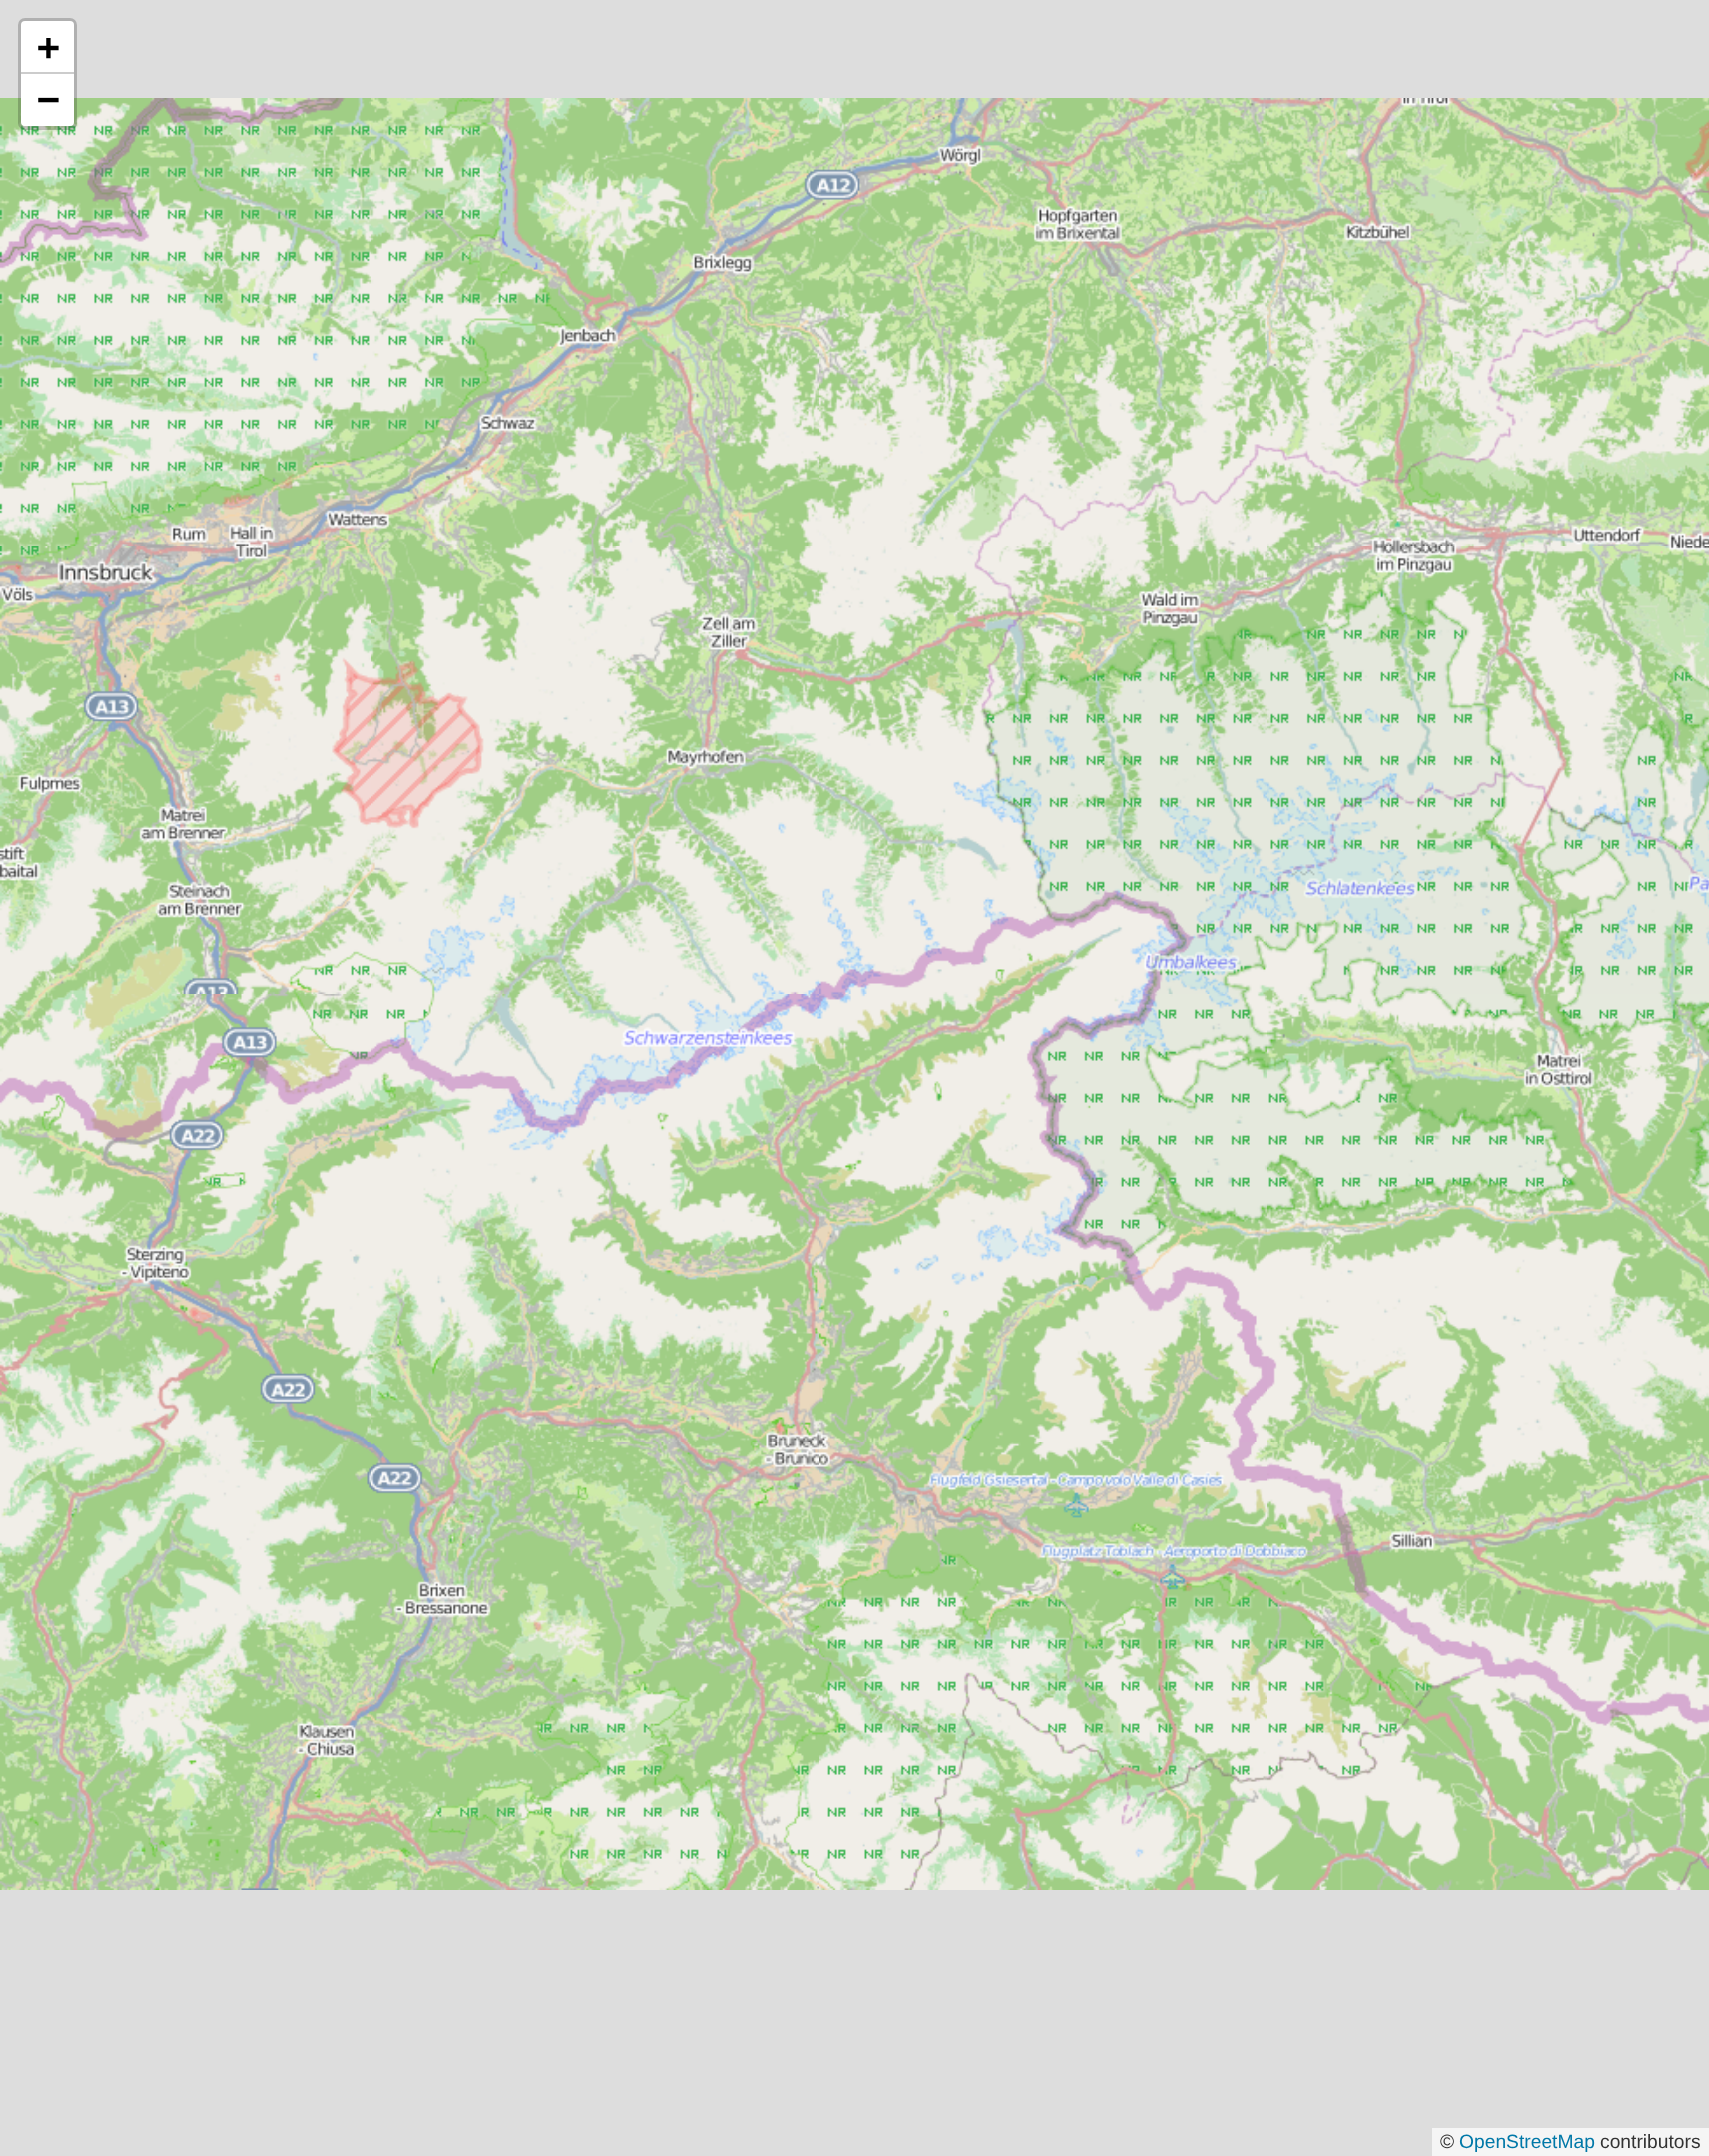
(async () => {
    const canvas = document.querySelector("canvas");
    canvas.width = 1709;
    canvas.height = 2156;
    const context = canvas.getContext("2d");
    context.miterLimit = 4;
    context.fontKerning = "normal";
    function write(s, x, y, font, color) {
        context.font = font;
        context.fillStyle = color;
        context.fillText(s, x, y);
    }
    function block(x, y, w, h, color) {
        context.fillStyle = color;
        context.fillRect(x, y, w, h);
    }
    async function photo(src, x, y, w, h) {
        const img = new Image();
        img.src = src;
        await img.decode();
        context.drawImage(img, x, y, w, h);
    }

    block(0, 0, 1709, 2156, "rgb(221, 221, 221)");
    await photo("media/1.png", 0, 98, 371, 448);
    context.beginPath();
    context.roundRect(20, 20, 55, 108, 5);
    context.strokeStyle = "rgba(0, 0, 0, 0.2)";
    context.lineWidth = 4;
    context.stroke();
    context.fillStyle = "rgb(255, 255, 255)";
    context.beginPath();
    context.roundRect(21, 21, 53, 53, [4, 4, 0, 0]);
    context.fill();
    block(21, 72, 53, 2, "rgb(204, 204, 204)");
    write("+", 37, 60, "bold 38px DejaVu Sans Mono", "rgb(0, 0, 0)");
    context.fillStyle = "rgb(255, 255, 255)";
    context.beginPath();
    context.roundRect(21, 74, 53, 52, [0, 0, 4, 4]);
    context.fill();
    write("−", 37, 112, "bold 38px DejaVu Sans Mono", "rgb(0, 0, 0)");
    block(1432, 2128, 277, 28, "rgb(245, 245, 245)");
    write("©", 1440, 2148, "19.25px Liberation Sans", "rgb(51, 51, 51)");
    write("OpenStreetMap", 1459, 2148, "19.25px Liberation Sans", "rgb(0, 120, 168)");
    write("contributors", 1600, 2148, "19.25px Liberation Sans", "rgb(51, 51, 51)");
    await photo("media/2.png", 371, 98, 448, 448);
    await photo("media/3.png", 819, 98, 448, 448);
    await photo("media/4.png", 1267, 98, 442, 448);
    await photo("media/5.png", 0, 546, 371, 448);
    await photo("media/6.png", 371, 546, 448, 448);
    await photo("media/7.png", 819, 546, 448, 448);
    await photo("media/8.png", 1267, 546, 442, 448);
    await photo("media/9.png", 0, 994, 371, 448);
    await photo("media/10.png", 371, 994, 448, 448);
    await photo("media/11.png", 819, 994, 448, 448);
    await photo("media/12.png", 1267, 994, 442, 448);
    await photo("media/13.png", 0, 1442, 371, 448);
    await photo("media/14.png", 371, 1442, 448, 448);
    await photo("media/15.png", 819, 1442, 448, 448);
    await photo("media/16.png", 1267, 1442, 442, 448);
})();
